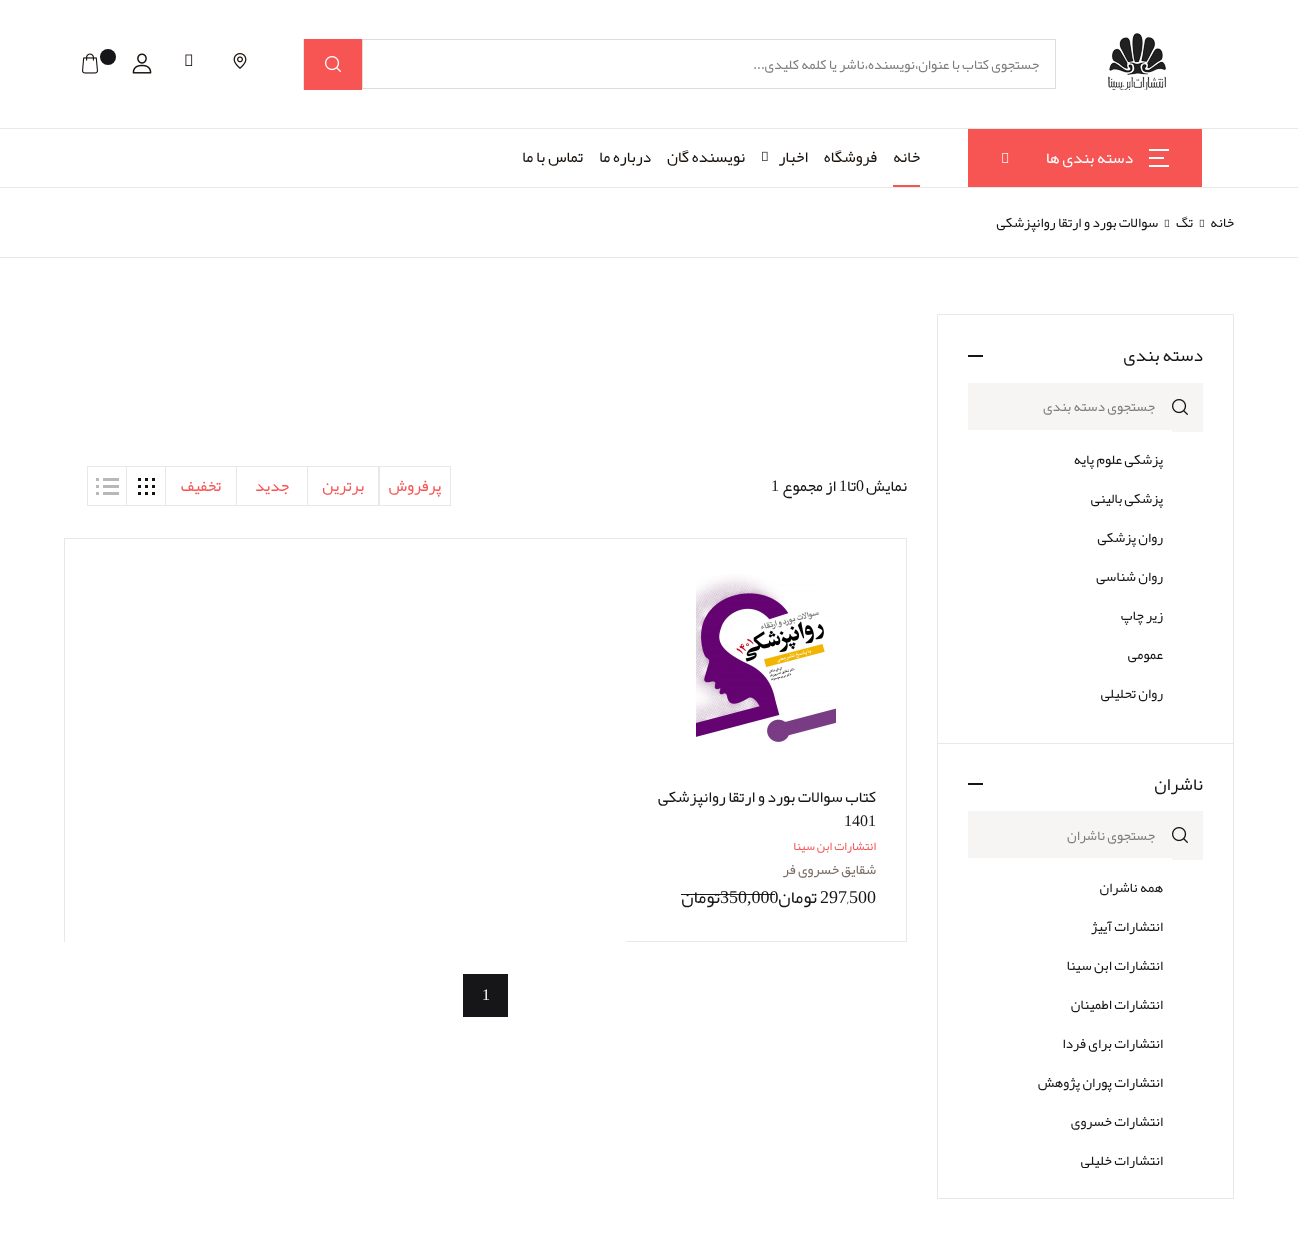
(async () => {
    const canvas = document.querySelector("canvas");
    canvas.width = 1298;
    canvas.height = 1253;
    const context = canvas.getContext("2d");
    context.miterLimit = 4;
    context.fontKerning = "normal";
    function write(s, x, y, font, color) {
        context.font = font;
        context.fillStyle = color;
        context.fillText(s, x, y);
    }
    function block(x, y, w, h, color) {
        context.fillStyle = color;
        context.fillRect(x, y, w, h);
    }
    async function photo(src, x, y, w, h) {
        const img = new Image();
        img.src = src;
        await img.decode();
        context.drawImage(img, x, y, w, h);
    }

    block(0, 0, 1298, 1253, "rgb(255, 255, 255)");
    block(0, 128, 1298, 1, "rgb(234, 232, 228)");
    await photo("media/1.png", 1108, 33, 58, 57);
    context.strokeStyle = "rgb(223, 220, 215)";
    context.strokeRect(362.5, 39.5, 693, 49);
    context.direction = "rtl";
    write("جستجوی کتاب با عنوان،نویسنده،ناشر یا کلمه کلیدی...", 1039, 69, "14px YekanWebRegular", "rgb(127, 127, 131)");
    block(303, 39, 1, 51, "rgb(234, 232, 228)");
    block(304, 39, 58, 51, "rgb(247, 84, 84)");
    await photo("media/2.png", 325, 56, 16, 16);
    await photo("media/3.png", 233, 53, 14, 16);
    await photo("media/4.png", 185, 54, 8, 12);
    await photo("media/5.png", 132, 53, 20, 21);
    context.fillStyle = "rgb(22, 22, 25)";
    context.beginPath();
    context.arc(108, 57, 8, 0, Math.PI * 2);
    context.fill();
    await photo("media/6.png", 82, 53, 16, 21);
    block(0, 187, 1298, 1, "rgb(234, 232, 228)");
    block(968, 129, 234, 58, "rgb(247, 84, 84)");
    block(1149, 149, 20, 2, "rgb(255, 255, 255)");
    block(1149, 157, 15, 2, "rgb(255, 255, 255)");
    block(1149, 165, 20, 2, "rgb(255, 255, 255)");
    write("دسته بندی ها", 1133, 163, "16px YekanWebRegular", "rgb(255, 255, 255)");
    await photo("media/7.png", 1002, 153, 7, 10);
    block(893, 185, 27, 2, "rgb(247, 84, 84)");
    write("خانه", 920, 162, "16px YekanWebRegular", "rgb(25, 17, 11)");
    write("فروشگاه", 877, 162, "16px YekanWebRegular", "rgb(25, 17, 11)");
    write("اخبار", 808, 162, "16px YekanWebRegular", "rgb(25, 17, 11)");
    await photo("media/8.png", 762, 151, 6, 10);
    write("نویسنده گان", 745, 162, "16px YekanWebRegular", "rgb(25, 17, 11)");
    write("درباره ما", 651, 162, "16px YekanWebRegular", "rgb(25, 17, 11)");
    write("تماس با ما", 583, 162, "16px YekanWebRegular", "rgb(25, 17, 11)");
    block(0, 257, 1298, 1, "rgb(234, 232, 228)");
    write("خانه", 1234, 227, "14px YekanWebRegular", "rgb(22, 22, 25)");
    await photo("media/9.png", 1199, 219, 5, 8);
    write("تگ", 1193, 227, "14px YekanWebRegular", "rgb(22, 22, 25)");
    await photo("media/9.png", 1164, 219, 5, 8);
    write("سوالات بورد و ارتقا روانپزشکی", 1158, 227, "14px YekanWebRegular", "rgb(22, 22, 25)");
    context.strokeStyle = "rgb(234, 232, 228)";
    context.strokeRect(937.5, 314.5, 296, 429);
    write("دسته بندی", 1203, 361, "18px YekanWebRegular", "rgb(22, 22, 25)");
    block(968, 355, 15, 2, "rgb(22, 22, 25)");
    block(1172, 383, 31, 49, "rgb(246, 245, 243)");
    await photo("media/10.png", 1172, 399, 16, 16);
    context.beginPath();
    context.rect(968.5, 383.5, 203, 46);
    context.fill();
    context.strokeStyle = "rgb(246, 245, 243)";
    context.stroke();
    write("جستجوی دسته بندی", 1155, 411, "14px YekanWebRegular", "rgb(127, 127, 131)");
    write("پزشکی علوم پایه", 1163, 464, "14px YekanWebRegular", "rgb(22, 22, 25)");
    write("پزشکی بالینی", 1163, 503, "14px YekanWebRegular", "rgb(22, 22, 25)");
    write("روان پزشکی", 1163, 542, "14px YekanWebRegular", "rgb(22, 22, 25)");
    write("روان شناسی", 1163, 581, "14px YekanWebRegular", "rgb(22, 22, 25)");
    write("زیر چاپ", 1163, 620, "14px YekanWebRegular", "rgb(22, 22, 25)");
    write("عمومی", 1163, 659, "14px YekanWebRegular", "rgb(22, 22, 25)");
    write("روان تحلیلی", 1163, 698, "14px YekanWebRegular", "rgb(22, 22, 25)");
    context.strokeStyle = "rgb(234, 232, 228)";
    context.strokeRect(937.5, 743.5, 296, 455);
    write("ناشران", 1203, 790, "18px YekanWebRegular", "rgb(22, 22, 25)");
    block(968, 783, 15, 2, "rgb(22, 22, 25)");
    block(1172, 811, 31, 49, "rgb(246, 245, 243)");
    await photo("media/10.png", 1172, 827, 16, 16);
    context.beginPath();
    context.rect(968.5, 811.5, 203, 46);
    context.fill();
    context.strokeStyle = "rgb(246, 245, 243)";
    context.stroke();
    write("جستجوی ناشران", 1155, 840, "14px YekanWebRegular", "rgb(127, 127, 131)");
    write("همه ناشران", 1163, 892, "14px YekanWebRegular", "rgb(22, 22, 25)");
    write("انتشارات آییژ", 1163, 931, "14px YekanWebRegular", "rgb(22, 22, 25)");
    write("انتشارات ابن سینا", 1163, 970, "14px YekanWebRegular", "rgb(22, 22, 25)");
    write("انتشارات اطمینان", 1163, 1009, "14px YekanWebRegular", "rgb(22, 22, 25)");
    write("انتشارات برای فردا", 1163, 1048, "14px YekanWebRegular", "rgb(22, 22, 25)");
    write("انتشارات پوران پژوهش", 1163, 1087, "14px YekanWebRegular", "rgb(22, 22, 25)");
    write("انتشارات خسروی", 1163, 1126, "14px YekanWebRegular", "rgb(22, 22, 25)");
    context.save();
    context.beginPath();
    context.rect(968, 868, 235, 300);
    context.clip();
    write("انتشارات خلیلی", 1163, 1165, "14px YekanWebRegular", "rgb(22, 22, 25)");
    context.restore();
    write("نمایش", 907, 491, "16px YekanWebRegular", "rgb(22, 22, 25)");
    context.direction = "ltr";
    write("0", 856, 491, "16px Liberation Serif", "rgb(22, 22, 25)");
    context.direction = "rtl";
    write("تا", 856, 491, "16px YekanWebRegular", "rgb(22, 22, 25)");
    context.direction = "ltr";
    write("1", 839, 491, "16px Liberation Serif", "rgb(22, 22, 25)");
    context.direction = "rtl";
    write("از مجموع", 836, 491, "16px YekanWebRegular", "rgb(22, 22, 25)");
    context.direction = "ltr";
    write("1", 771, 491, "16px Liberation Serif", "rgb(22, 22, 25)");
    context.strokeStyle = "rgb(234, 232, 228)";
    context.strokeRect(379.5, 466.5, 71, 39);
    context.direction = "rtl";
    write("پرفروش", 441, 491, "16px YekanWebRegular", "rgb(247, 84, 84)");
    context.strokeRect(307.5, 466.5, 71, 39);
    write("برترین", 364, 491, "16px YekanWebRegular", "rgb(247, 84, 84)");
    context.strokeRect(236.5, 466.5, 71, 39);
    write("جدید", 289, 491, "16px YekanWebRegular", "rgb(247, 84, 84)");
    context.strokeRect(165.5, 466.5, 71, 39);
    write("تخفیف", 221, 491, "16px YekanWebRegular", "rgb(247, 84, 84)");
    context.strokeRect(126.5, 466.5, 39, 39);
    await photo("media/11.png", 138, 478, 17, 17);
    context.strokeRect(87.5, 466.5, 39, 39);
    await photo("media/12.png", 96, 478, 23, 17);
    block(64, 538, 843, 1, "rgb(234, 232, 228)");
    block(64, 538, 1, 404, "rgb(234, 232, 228)");
    block(906, 539, 1, 403, "rgb(234, 232, 228)");
    block(626, 941, 281, 1, "rgb(234, 232, 228)");
    await photo("media/13.png", 696, 574, 140, 168);
    write("کتاب سوالات بورد و ارتقا روانپزشکی", 876, 802, "16px YekanWebRegular", "rgb(22, 22, 25)");
    context.direction = "ltr";
    write("1401", 844, 826, "16px Liberation Serif", "rgb(22, 22, 25)");
    context.direction = "rtl";
    write("انتشارات ابن سینا", 876, 850, "12px YekanWebRegular", "rgb(247, 84, 84)");
    write("شقایق", 876, 874, "14px YekanWebRegular", "rgb(124, 110, 101)");
    write("خسروی فر", 839, 874, "14px YekanWebRegular", "rgb(124, 110, 101)");
    context.direction = "ltr";
    write("500", 849, 903, "18px Liberation Serif", "rgb(22, 22, 25)");
    write(",", 847, 903, "18px YekanWebRegular", "rgb(22, 22, 25)");
    write("297", 820, 903, "18px Liberation Serif", "rgb(22, 22, 25)");
    context.direction = "rtl";
    write("تومان", 817, 903, "18px YekanWebRegular", "rgb(22, 22, 25)");
    context.direction = "ltr";
    write("350,000", 720, 903, "18px Liberation Serif", "rgb(22, 22, 25)");
    block(681, 894, 39, 1, "rgb(22, 22, 25)");
    block(720, 894, 55, 1, "rgb(22, 22, 25)");
    context.direction = "rtl";
    write("تومان", 720, 903, "18px YekanWebRegular", "rgb(22, 22, 25)");
    block(463, 974, 45, 43, "rgb(22, 22, 25)");
    context.direction = "ltr";
    write("1", 482, 1000, "16px Liberation Serif", "rgb(255, 255, 255)");
})();
